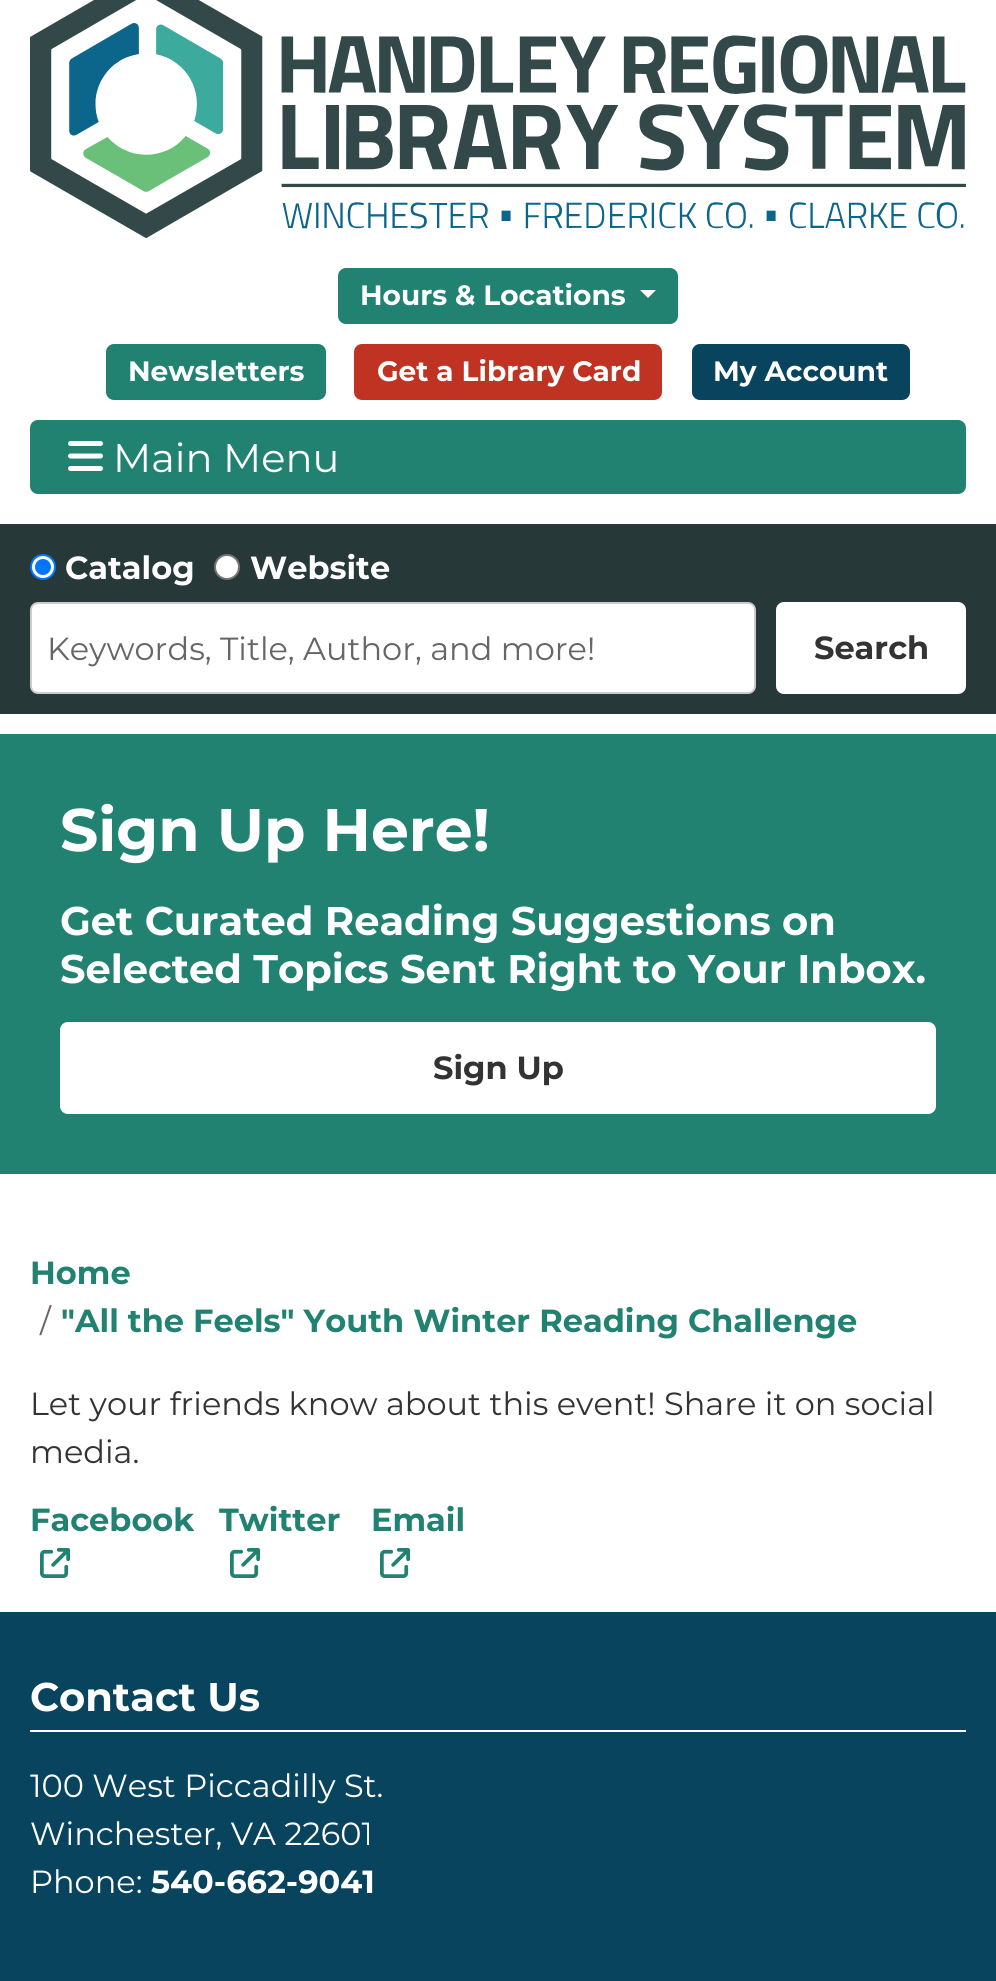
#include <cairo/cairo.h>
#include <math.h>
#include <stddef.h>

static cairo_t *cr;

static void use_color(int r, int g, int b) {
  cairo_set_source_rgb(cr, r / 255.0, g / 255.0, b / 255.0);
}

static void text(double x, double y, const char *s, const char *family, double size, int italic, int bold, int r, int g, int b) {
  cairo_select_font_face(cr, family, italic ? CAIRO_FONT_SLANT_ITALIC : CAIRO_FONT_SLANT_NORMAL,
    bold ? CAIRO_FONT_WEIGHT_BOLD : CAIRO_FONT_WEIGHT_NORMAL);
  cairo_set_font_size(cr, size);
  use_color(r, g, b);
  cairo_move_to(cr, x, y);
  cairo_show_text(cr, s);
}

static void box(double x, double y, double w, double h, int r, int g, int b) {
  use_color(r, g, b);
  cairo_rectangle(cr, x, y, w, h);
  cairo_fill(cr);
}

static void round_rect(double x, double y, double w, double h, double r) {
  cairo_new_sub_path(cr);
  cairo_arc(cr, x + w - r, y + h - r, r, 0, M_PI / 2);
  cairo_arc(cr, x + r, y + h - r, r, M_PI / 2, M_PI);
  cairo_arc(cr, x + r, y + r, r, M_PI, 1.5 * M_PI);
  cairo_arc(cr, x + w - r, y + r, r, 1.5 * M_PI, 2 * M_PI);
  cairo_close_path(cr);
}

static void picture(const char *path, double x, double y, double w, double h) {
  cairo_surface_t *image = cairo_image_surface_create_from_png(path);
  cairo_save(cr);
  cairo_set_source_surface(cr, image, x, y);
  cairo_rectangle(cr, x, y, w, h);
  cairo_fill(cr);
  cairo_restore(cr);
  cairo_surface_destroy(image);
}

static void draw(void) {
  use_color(255, 255, 255);
  cairo_paint(cr);
  picture("img_01.png", 30, 0, 936, 238);
  use_color(34, 130, 113);
  round_rect(339, 269, 338, 54, 7);
  cairo_fill_preserve(cr);
  cairo_stroke(cr);
  use_color(255, 255, 255);
  cairo_new_path(cr);
  cairo_move_to(cr, 640, 290);
  cairo_line_to(cr, 656, 290);
  cairo_line_to(cr, 648, 298);
  cairo_close_path(cr);
  cairo_fill(cr);
  use_color(34, 130, 113);
  round_rect(107, 345, 218, 54, 7);
  cairo_fill_preserve(cr);
  cairo_stroke(cr);
  use_color(192, 50, 33);
  round_rect(355, 345, 306, 54, 7);
  cairo_fill_preserve(cr);
  cairo_stroke(cr);
  use_color(8, 68, 94);
  round_rect(693, 345, 216, 54, 7);
  cairo_fill_preserve(cr);
  cairo_stroke(cr);
  use_color(34, 130, 113);
  round_rect(30, 420, 936, 74, 8);
  cairo_fill(cr);
  picture("img_02.png", 68, 441, 35, 30);
  box(0, 524, 996, 190, 39, 56, 56);
  use_color(255, 255, 255);
  cairo_arc(cr, 43, 567, 12, 0, 2 * M_PI);
  cairo_fill_preserve(cr);
  use_color(0, 117, 255);
  cairo_stroke(cr);
  cairo_arc(cr, 43, 567, 8, 0, 2 * M_PI);
  cairo_fill(cr);
  use_color(255, 255, 255);
  cairo_arc(cr, 227, 567, 12, 0, 2 * M_PI);
  cairo_fill_preserve(cr);
  use_color(118, 118, 118);
  cairo_stroke(cr);
  use_color(255, 255, 255);
  round_rect(31, 603, 724, 90, 7);
  cairo_fill_preserve(cr);
  use_color(204, 204, 204);
  cairo_stroke(cr);
  use_color(255, 255, 255);
  round_rect(777, 603, 188, 90, 7);
  cairo_fill_preserve(cr);
  cairo_stroke(cr);
  box(0, 734, 996, 440, 34, 130, 113);
  use_color(255, 255, 255);
  round_rect(61, 1023, 874, 90, 7);
  cairo_fill_preserve(cr);
  cairo_stroke(cr);
  picture("img_03.png", 40, 1548, 30, 30);
  picture("img_03.png", 230, 1548, 30, 30);
  picture("img_03.png", 380, 1548, 30, 30);
  box(0, 1612, 996, 369, 8, 68, 94);
  box(30, 1730, 936, 2, 255, 255, 255);
  text(360, 305, "Hours & Locations", "Montserrat", 28, 0, 1, 255, 255, 255);
  text(128, 381, "Newsletters", "Montserrat", 28, 0, 1, 255, 255, 255);
  text(377, 381, "Get a Library Card", "Montserrat", 28, 0, 1, 255, 255, 255);
  text(713, 381, "My Account", "Montserrat", 28, 0, 1, 255, 255, 255);
  text(113, 472, "Main Menu", "Montserrat", 40, 0, 0, 255, 255, 255);
  text(65, 579, "Catalog", "Montserrat", 32, 0, 1, 255, 255, 255);
  text(250, 579, "Website", "Montserrat", 32, 0, 1, 255, 255, 255);
  text(47, 660, "Keywords, Title, Author, and more!", "Montserrat", 32, 0, 0, 102, 102, 102);
  text(814, 659, "Search", "Montserrat", 32, 0, 1, 51, 51, 51);
  text(60, 851, "Sign Up Here!", "Montserrat", 60, 0, 1, 255, 255, 255);
  text(60, 935, "Get Curated Reading Suggestions on", "Montserrat", 40, 0, 1, 255, 255, 255);
  text(60, 983, "Selected Topics Sent Right to Your Inbox.", "Montserrat", 40, 0, 1, 255, 255, 255);
  text(433, 1079, "Sign Up", "Montserrat", 32, 0, 1, 51, 51, 51);
  text(30, 1284, "Home", "Montserrat", 32, 0, 1, 34, 130, 113);
  text(40, 1332, "/", "Montserrat", 32, 0, 0, 102, 102, 102);
  text(61, 1332, "\"All the Feels\" Youth Winter Reading Challenge", "Montserrat", 32, 0, 1, 34, 130, 113);
  text(30, 1415, "Let your friends know about this event! Share it on social", "Montserrat", 32, 0, 0, 51, 51, 51);
  text(30, 1463, "media.", "Montserrat", 32, 0, 0, 51, 51, 51);
  text(30, 1531, "Facebook", "Montserrat", 32, 0, 1, 34, 130, 113);
  text(219, 1531, "Twitter", "Montserrat", 32, 0, 1, 34, 130, 113);
  text(371, 1531, "Email", "Montserrat", 32, 0, 1, 34, 130, 113);
  text(30, 1711, "Contact Us", "Montserrat", 40, 0, 1, 255, 255, 255);
  text(30, 1797, "100 West Piccadilly St.", "Montserrat", 32, 0, 0, 255, 255, 255);
  text(30, 1845, "Winchester, VA 22601", "Montserrat", 32, 0, 0, 255, 255, 255);
  text(30, 1893, "Phone:", "Montserrat", 32, 0, 0, 255, 255, 255);
  text(151, 1893, "540-662-9041", "Montserrat", 32, 0, 1, 255, 255, 255);
}

int main(void) {
  cairo_surface_t *surface = cairo_image_surface_create(CAIRO_FORMAT_RGB24, 996, 1981);
  cr = cairo_create(surface);
  cairo_font_options_t *options = cairo_font_options_create();
  cairo_font_options_set_hint_metrics(options, CAIRO_HINT_METRICS_OFF);
  cairo_font_options_set_hint_style(options, CAIRO_HINT_STYLE_NONE);
  cairo_set_font_options(cr, options);
  cairo_set_miter_limit(cr, 4);
  draw();
  cairo_surface_write_to_png(surface, "out.png");
  cairo_font_options_destroy(options);
  cairo_destroy(cr);
  cairo_surface_destroy(surface);
  return 0;
}
